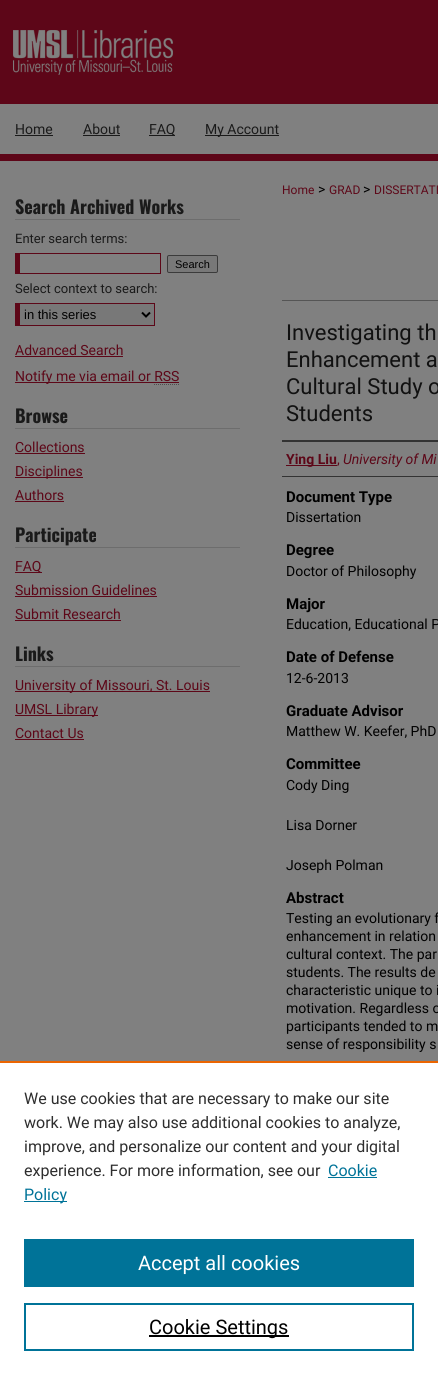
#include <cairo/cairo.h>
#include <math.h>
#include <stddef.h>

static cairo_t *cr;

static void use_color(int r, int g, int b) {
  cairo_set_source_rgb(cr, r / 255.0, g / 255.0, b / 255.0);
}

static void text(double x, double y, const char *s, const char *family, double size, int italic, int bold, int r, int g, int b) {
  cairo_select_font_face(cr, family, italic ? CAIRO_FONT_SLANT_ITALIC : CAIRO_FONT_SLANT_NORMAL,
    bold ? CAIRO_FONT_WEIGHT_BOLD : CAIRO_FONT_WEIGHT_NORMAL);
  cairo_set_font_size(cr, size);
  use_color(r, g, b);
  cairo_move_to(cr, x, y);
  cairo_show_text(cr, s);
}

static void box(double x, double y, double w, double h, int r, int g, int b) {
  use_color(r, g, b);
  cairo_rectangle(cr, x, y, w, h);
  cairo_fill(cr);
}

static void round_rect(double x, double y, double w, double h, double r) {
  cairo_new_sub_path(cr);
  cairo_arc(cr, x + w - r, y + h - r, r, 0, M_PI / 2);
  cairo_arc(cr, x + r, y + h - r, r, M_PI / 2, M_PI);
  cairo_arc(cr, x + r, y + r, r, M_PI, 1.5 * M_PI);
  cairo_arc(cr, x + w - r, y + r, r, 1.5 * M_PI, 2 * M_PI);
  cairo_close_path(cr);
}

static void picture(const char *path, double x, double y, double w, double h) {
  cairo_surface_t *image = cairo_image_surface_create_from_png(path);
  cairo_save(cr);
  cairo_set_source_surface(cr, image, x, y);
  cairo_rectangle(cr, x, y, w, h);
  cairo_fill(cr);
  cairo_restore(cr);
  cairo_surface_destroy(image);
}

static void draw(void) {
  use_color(128, 128, 128);
  cairo_paint(cr);
  picture("img_01.png", 0, 0, 438, 161);
  picture("img_02.png", 13, 30, 160, 45);
  box(15, 135, 38, 1, 26, 26, 26);
  box(83, 135, 37, 1, 26, 26, 26);
  box(149, 135, 26, 1, 26, 26, 26);
  box(205, 135, 74, 1, 26, 26, 26);
  box(15, 219, 225, 1, 109, 109, 109);
  box(15, 253, 146, 1, 93, 7, 24);
  box(160, 253, 1, 21, 93, 7, 24);
  box(15, 273, 146, 1, 93, 7, 24);
  box(15, 253, 5, 21, 93, 7, 24);
  use_color(120, 120, 120);
  round_rect(167.5, 255.5, 50, 17, 1.5);
  cairo_fill_preserve(cr);
  use_color(59, 59, 59);
  cairo_set_line_width(cr, 1);
  cairo_stroke(cr);
  box(20, 304, 134, 21, 120, 120, 120);
  box(15, 303, 140, 1, 93, 7, 24);
  box(154, 303, 1, 23, 93, 7, 24);
  box(15, 325, 140, 1, 93, 7, 24);
  box(15, 303, 5, 23, 93, 7, 24);
  cairo_new_path(cr);
  cairo_move_to(cr, 142, 312.5);
  cairo_line_to(cr, 146, 316.5);
  cairo_line_to(cr, 150, 312.5);
  use_color(0, 0, 0);
  cairo_set_line_width(cr, 2);
  cairo_stroke(cr);
  box(15, 356, 108, 1, 93, 7, 24);
  box(15, 382, 164, 1, 93, 7, 24);
  cairo_new_path(cr);
  cairo_move_to(cr, 154, 384.5);
  cairo_line_to(cr, 179, 384.5);
  use_color(77, 77, 77);
  cairo_set_line_width(cr, 1);
  cairo_set_dash(cr, (double[]){1, 1}, 2, 0);
  cairo_stroke(cr);
  box(15, 428, 225, 1, 109, 109, 109);
  box(15, 453, 70, 1, 93, 7, 24);
  box(15, 477, 68, 1, 93, 7, 24);
  box(15, 501, 49, 1, 93, 7, 24);
  box(15, 547, 225, 1, 109, 109, 109);
  box(15, 572, 27, 1, 93, 7, 24);
  box(15, 596, 142, 1, 93, 7, 24);
  box(15, 620, 106, 1, 93, 7, 24);
  box(15, 666, 225, 1, 109, 109, 109);
  box(15, 691, 195, 1, 93, 7, 24);
  box(15, 715, 83, 1, 93, 7, 24);
  box(15, 739, 69, 1, 93, 7, 24);
  box(282, 300, 156, 1, 85, 85, 85);
  box(282, 440, 156, 2, 51, 51, 51);
  box(282, 476, 156, 1, 51, 51, 51);
  box(286, 465, 51, 1, 93, 7, 24);
  box(0, 1063, 438, 312, 255, 255, 255);
  box(0, 1061, 438, 2, 235, 101, 0);
  box(328, 1177, 49, 1, 0, 115, 152);
  box(24, 1201, 43, 1, 0, 115, 152);
  box(24, 1239, 390, 48, 0, 115, 152);
  cairo_rectangle(cr, 25, 1304, 388, 46);
  cairo_set_line_width(cr, 2);
  cairo_set_dash(cr, NULL, 0, 0);
  cairo_stroke(cr);
  box(149, 1335, 140, 2, 0, 0, 0);
  text(15, 134, "Home", "Roboto", 14, 0, 0, 26, 26, 26);
  text(83, 134, "About", "Roboto", 14, 0, 0, 26, 26, 26);
  text(149, 134, "FAQ", "Roboto", 14, 0, 0, 26, 26, 26);
  text(205, 134, "My Account", "Roboto", 14, 0, 0, 26, 26, 26);
  text(15, 214, "Search Archived Works", "Oswald", 18, 0, 1, 26, 26, 26);
  text(15, 243, "Enter search terms:", "Roboto", 13, 0, 0, 26, 26, 26);
  text(175, 268, "Search", "Liberation Sans", 11, 0, 0, 0, 0, 0);
  text(15, 293, "Select context to search:", "Roboto", 13, 0, 0, 26, 26, 26);
  text(24, 319, "in this series", "Liberation Sans", 13, 0, 0, 0, 0, 0);
  text(15, 355, "Advanced Search", "Roboto", 14, 0, 0, 93, 7, 24);
  text(15, 381, "Notify me via email or RSS", "Roboto", 14, 0, 0, 93, 7, 24);
  text(15, 423, "Browse", "Oswald", 18, 0, 1, 26, 26, 26);
  text(15, 452, "Collections", "Roboto", 14, 0, 0, 93, 7, 24);
  text(15, 476, "Disciplines", "Roboto", 14, 0, 0, 93, 7, 24);
  text(15, 500, "Authors", "Roboto", 14, 0, 0, 93, 7, 24);
  text(15, 542, "Participate", "Oswald", 18, 0, 1, 26, 26, 26);
  text(15, 571, "FAQ", "Roboto", 14, 0, 0, 93, 7, 24);
  text(15, 595, "Submission Guidelines", "Roboto", 14, 0, 0, 93, 7, 24);
  text(15, 619, "Submit Research", "Roboto", 14, 0, 0, 93, 7, 24);
  text(15, 661, "Links", "Oswald", 18, 0, 1, 26, 26, 26);
  text(15, 690, "University of Missouri, St. Louis", "Roboto", 14, 0, 0, 93, 7, 24);
  text(15, 714, "UMSL Library", "Roboto", 14, 0, 0, 93, 7, 24);
  text(15, 738, "Contact Us", "Roboto", 14, 0, 0, 93, 7, 24);
  text(282, 194, "Home", "Roboto", 12, 0, 0, 93, 7, 24);
  text(318, 194, ">", "Roboto", 14, 0, 0, 0, 0, 0);
  text(329, 194, "GRAD", "Roboto", 12, 0, 0, 93, 7, 24);
  text(363, 194, ">", "Roboto", 14, 0, 0, 0, 0, 0);
  text(374, 194, "DISSERTATI", "Roboto", 12, 0, 0, 93, 7, 24);
  text(286, 340, "Investigating th", "Roboto", 22, 0, 0, 17, 17, 17);
  text(286, 367, "Enhancement a", "Roboto", 22, 0, 0, 17, 17, 17);
  text(286, 394, "Cultural Study o", "Roboto", 22, 0, 0, 17, 17, 17);
  text(286, 421, "Students", "Roboto", 22, 0, 0, 17, 17, 17);
  text(286, 464, "Ying Liu", "Roboto", 14, 0, 1, 93, 7, 24);
  text(337, 464, ",", "Roboto", 14, 0, 0, 93, 7, 24);
  text(343, 464, "University of Mi", "Roboto", 14, 1, 0, 93, 7, 24);
  text(286, 502, "Document Type", "Roboto", 15, 0, 1, 0, 0, 0);
  text(286, 522, "Dissertation", "Roboto", 14, 0, 0, 0, 0, 0);
  text(286, 555, "Degree", "Roboto", 15, 0, 1, 0, 0, 0);
  text(286, 576, "Doctor of Philosophy", "Roboto", 14, 0, 0, 0, 0, 0);
  text(286, 609, "Major", "Roboto", 15, 0, 1, 0, 0, 0);
  text(286, 629, "Education, Educational P", "Roboto", 14, 0, 0, 0, 0, 0);
  text(286, 662, "Date of Defense", "Roboto", 15, 0, 1, 0, 0, 0);
  text(286, 683, "12-6-2013", "Roboto", 14, 0, 0, 0, 0, 0);
  text(286, 716, "Graduate Advisor", "Roboto", 15, 0, 1, 0, 0, 0);
  text(286, 736, "Matthew W. Keefer, PhD", "Roboto", 14, 0, 0, 0, 0, 0);
  text(286, 769, "Committee", "Roboto", 15, 0, 1, 0, 0, 0);
  text(286, 790, "Cody Ding", "Roboto", 14, 0, 0, 0, 0, 0);
  text(286, 830, "Lisa Dorner", "Roboto", 14, 0, 0, 0, 0, 0);
  text(286, 870, "Joseph Polman", "Roboto", 14, 0, 0, 0, 0, 0);
  text(286, 903, "Abstract", "Roboto", 15, 0, 1, 0, 0, 0);
  text(286, 923, "Testing an evolutionary f", "Roboto", 14, 0, 0, 0, 0, 0);
  text(286, 941, "enhancement in relation", "Roboto", 14, 0, 0, 0, 0, 0);
  text(286, 959, "cultural context. The par", "Roboto", 14, 0, 0, 0, 0, 0);
  text(286, 977, "students. The results de", "Roboto", 14, 0, 0, 0, 0, 0);
  text(286, 995, "characteristic unique to i", "Roboto", 14, 0, 0, 0, 0, 0);
  text(286, 1013, "motivation. Regardless o", "Roboto", 14, 0, 0, 0, 0, 0);
  text(286, 1031, "participants tended to m", "Roboto", 14, 0, 0, 0, 0, 0);
  text(286, 1049, "sense of responsibility s", "Roboto", 14, 0, 0, 0, 0, 0);
  text(24, 1104, "We use cookies that are necessary to make our site", "Roboto", 16, 0, 0, 46, 46, 46);
  text(24, 1128, "work. We may also use additional cookies to analyze,", "Roboto", 16, 0, 0, 46, 46, 46);
  text(24, 1152, "improve, and personalize our content and your digital", "Roboto", 16, 0, 0, 46, 46, 46);
  text(24, 1176, "experience. For more information, see our", "Roboto", 16, 0, 0, 46, 46, 46);
  text(328, 1176, "Cookie", "Roboto", 16, 0, 0, 0, 115, 152);
  text(24, 1200, "Policy", "Roboto", 16, 0, 0, 0, 115, 152);
  text(138, 1270, "Accept all cookies", "Roboto", 20, 0, 0, 255, 255, 255);
  text(149, 1334, "Cookie Settings", "Roboto", 20, 0, 0, 0, 0, 0);
}

int main(void) {
  cairo_surface_t *surface = cairo_image_surface_create(CAIRO_FORMAT_RGB24, 438, 1375);
  cr = cairo_create(surface);
  cairo_font_options_t *options = cairo_font_options_create();
  cairo_font_options_set_hint_metrics(options, CAIRO_HINT_METRICS_OFF);
  cairo_font_options_set_hint_style(options, CAIRO_HINT_STYLE_NONE);
  cairo_set_font_options(cr, options);
  cairo_set_miter_limit(cr, 4);
  draw();
  cairo_surface_write_to_png(surface, "out.png");
  cairo_font_options_destroy(options);
  cairo_destroy(cr);
  cairo_surface_destroy(surface);
  return 0;
}
